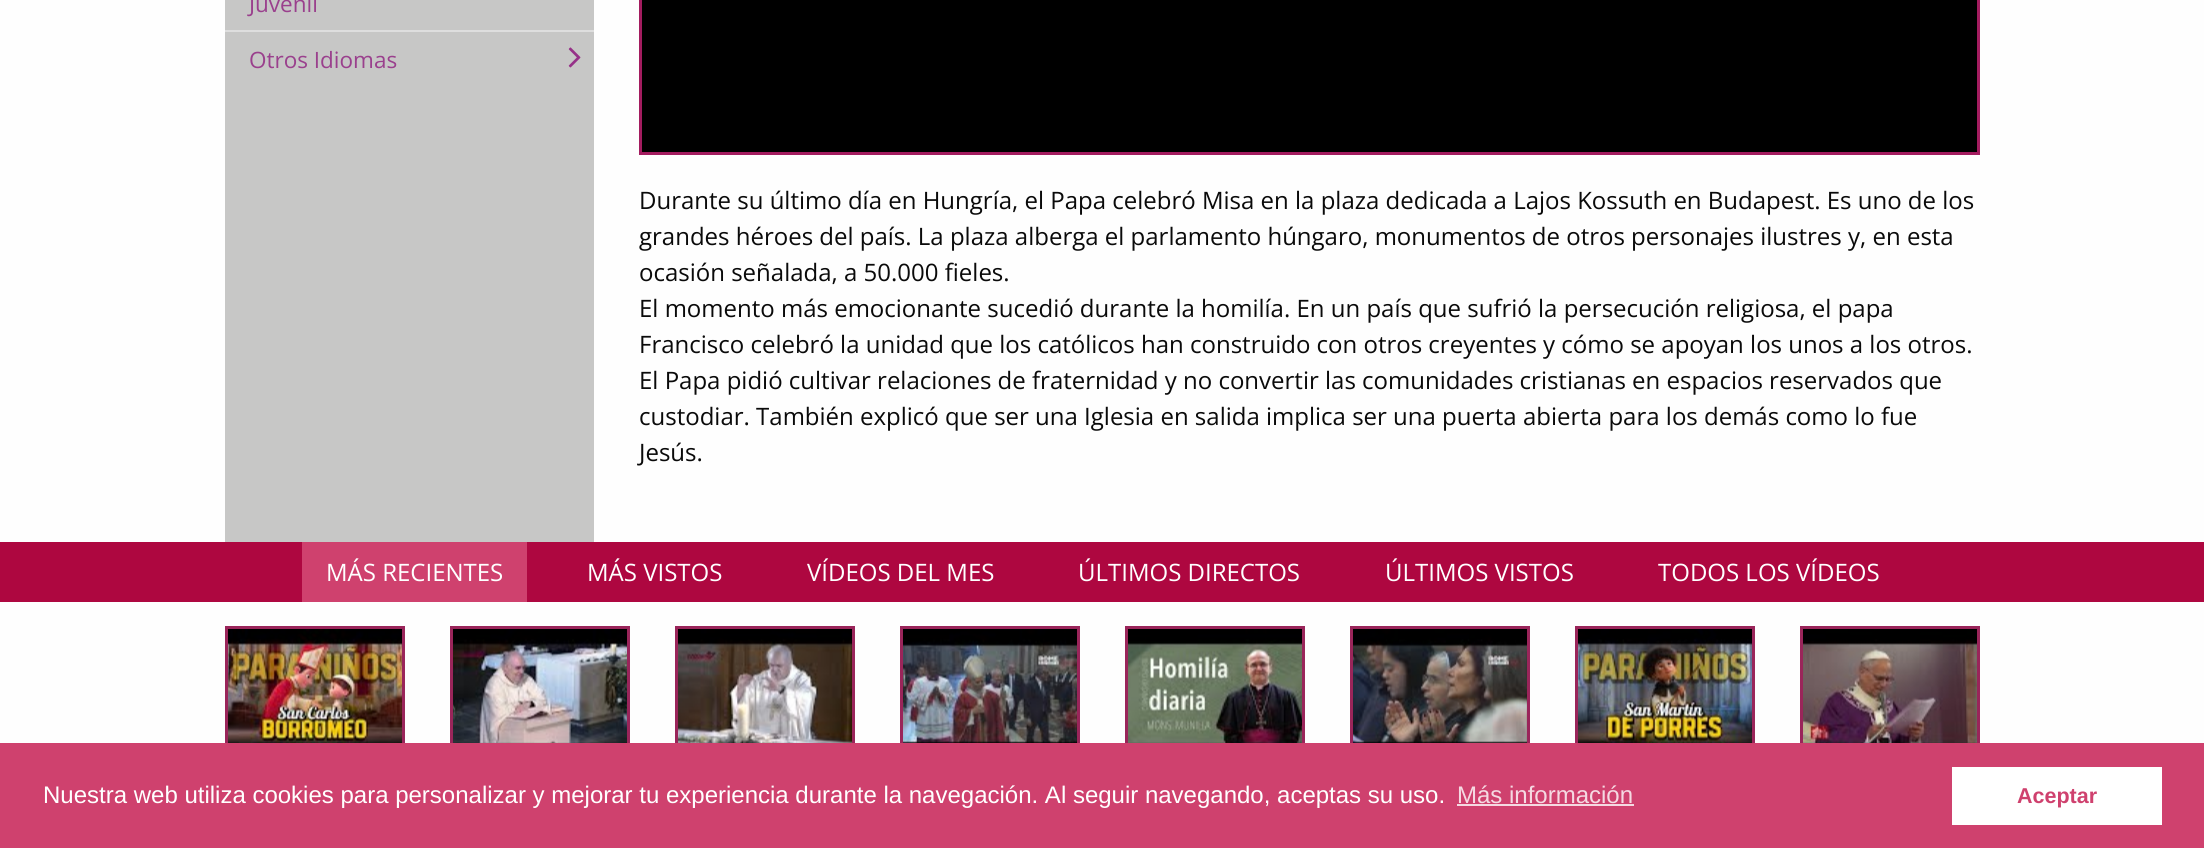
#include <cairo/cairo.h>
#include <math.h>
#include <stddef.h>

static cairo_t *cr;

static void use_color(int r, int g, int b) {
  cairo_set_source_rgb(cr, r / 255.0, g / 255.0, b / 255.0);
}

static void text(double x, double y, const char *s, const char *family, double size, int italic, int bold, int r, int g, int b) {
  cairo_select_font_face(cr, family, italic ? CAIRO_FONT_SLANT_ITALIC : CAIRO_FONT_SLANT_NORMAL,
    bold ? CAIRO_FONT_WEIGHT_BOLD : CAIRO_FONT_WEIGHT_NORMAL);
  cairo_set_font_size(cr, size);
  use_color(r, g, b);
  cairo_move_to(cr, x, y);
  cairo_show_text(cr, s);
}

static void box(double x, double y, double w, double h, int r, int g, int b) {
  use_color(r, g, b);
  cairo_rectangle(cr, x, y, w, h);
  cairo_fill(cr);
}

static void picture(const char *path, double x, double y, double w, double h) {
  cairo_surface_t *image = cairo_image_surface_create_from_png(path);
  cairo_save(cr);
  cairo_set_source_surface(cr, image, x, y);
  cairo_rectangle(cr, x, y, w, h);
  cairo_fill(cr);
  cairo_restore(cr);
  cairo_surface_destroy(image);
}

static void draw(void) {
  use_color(254, 254, 254);
  cairo_paint(cr);
  box(225, 0, 369, 542, 199, 199, 198);
  box(225, 30, 369, 2, 222, 222, 222);
  picture("img_01.png", 568, 47, 13, 21);
  use_color(0, 0, 0);
  cairo_rectangle(cr, 640.5, -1.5, 1338, 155);
  cairo_fill_preserve(cr);
  use_color(163, 28, 95);
  cairo_set_line_width(cr, 3);
  cairo_stroke(cr);
  box(0, 542, 2204, 60, 174, 7, 64);
  box(302, 542, 225, 60, 207, 65, 110);
  cairo_rectangle(cr, 226.5, 627.5, 177, 133);
  use_color(154, 37, 90);
  cairo_stroke(cr);
  picture("img_02.png", 228, 629, 174, 114);
  cairo_rectangle(cr, 451.5, 627.5, 177, 133);
  cairo_stroke(cr);
  picture("img_03.png", 453, 629, 174, 114);
  cairo_rectangle(cr, 676.5, 627.5, 177, 133);
  cairo_stroke(cr);
  picture("img_04.png", 678, 629, 174, 114);
  cairo_rectangle(cr, 901.5, 627.5, 177, 133);
  cairo_stroke(cr);
  picture("img_05.png", 903, 629, 174, 114);
  cairo_rectangle(cr, 1126.5, 627.5, 177, 133);
  cairo_stroke(cr);
  picture("img_06.png", 1128, 629, 174, 114);
  cairo_rectangle(cr, 1351.5, 627.5, 177, 133);
  cairo_stroke(cr);
  picture("img_07.png", 1353, 629, 174, 114);
  cairo_rectangle(cr, 1576.5, 627.5, 177, 133);
  cairo_stroke(cr);
  picture("img_08.png", 1578, 629, 174, 114);
  cairo_rectangle(cr, 1801.5, 627.5, 177, 133);
  cairo_stroke(cr);
  picture("img_09.png", 1803, 629, 174, 114);
  box(0, 743, 2204, 105, 207, 65, 110);
  box(1457, 804, 177, 2, 245, 217, 226);
  box(1952, 767, 210, 58, 255, 255, 255);
  text(249, 12, "Juvenil", "Open Sans", 22.5, 0, 0, 154, 64, 141);
  text(249, 68, "Otros Idiomas", "Open Sans", 22.5, 0, 0, 154, 64, 141);
  text(639, 209, "Durante su último día en Hungría, el Papa celebró Misa en la plaza dedicada a Lajos Kossuth en Budapest. Es uno de los", "Open Sans", 24, 0, 0, 10, 10, 10);
  text(639, 245, "grandes héroes del país. La plaza alberga el parlamento húngaro, monumentos de otros personajes ilustres y, en esta", "Open Sans", 24, 0, 0, 10, 10, 10);
  text(639, 281, "ocasión señalada, a 50.000 fieles.", "Open Sans", 24, 0, 0, 10, 10, 10);
  text(639, 317, "El momento más emocionante sucedió durante la homilía. En un país que sufrió la persecución religiosa, el papa", "Open Sans", 24, 0, 0, 10, 10, 10);
  text(639, 353, "Francisco celebró la unidad que los católicos han construido con otros creyentes y cómo se apoyan los unos a los otros.", "Open Sans", 24, 0, 0, 10, 10, 10);
  text(639, 389, "El Papa pidió cultivar relaciones de fraternidad y no convertir las comunidades cristianas en espacios reservados que", "Open Sans", 24, 0, 0, 10, 10, 10);
  text(639, 425, "custodiar. También explicó que ser una Iglesia en salida implica ser una puerta abierta para los demás como lo fue", "Open Sans", 24, 0, 0, 10, 10, 10);
  text(639, 461, "Jesús.", "Open Sans", 24, 0, 0, 10, 10, 10);
  text(326, 581, "MÁS RECIENTES", "Open Sans", 24, 0, 0, 255, 255, 255);
  text(587, 581, "MÁS VISTOS", "Open Sans", 24, 0, 0, 255, 255, 255);
  text(807, 581, "VÍDEOS DEL MES", "Open Sans", 24, 0, 0, 255, 255, 255);
  text(1078, 581, "ÚLTIMOS DIRECTOS", "Open Sans", 24, 0, 0, 255, 255, 255);
  text(1385, 581, "ÚLTIMOS VISTOS", "Open Sans", 24, 0, 0, 255, 255, 255);
  text(1658, 581, "TODOS LOS VÍDEOS", "Open Sans", 24, 0, 0, 255, 255, 255);
  text(43, 803, "Nuestra web utiliza cookies para personalizar y mejorar tu experiencia durante la navegación. Al seguir navegando, aceptas su uso.", "Liberation Sans", 24, 0, 0, 255, 255, 255);
  text(1457, 803, "Más información", "Liberation Sans", 24, 0, 0, 245, 217, 226);
  text(2017, 803, "Aceptar", "Liberation Sans", 21.5, 0, 1, 207, 65, 110);
}

int main(void) {
  cairo_surface_t *surface = cairo_image_surface_create(CAIRO_FORMAT_RGB24, 2204, 848);
  cr = cairo_create(surface);
  cairo_font_options_t *options = cairo_font_options_create();
  cairo_font_options_set_hint_metrics(options, CAIRO_HINT_METRICS_OFF);
  cairo_font_options_set_hint_style(options, CAIRO_HINT_STYLE_NONE);
  cairo_set_font_options(cr, options);
  cairo_set_miter_limit(cr, 4);
  draw();
  cairo_surface_write_to_png(surface, "out.png");
  cairo_font_options_destroy(options);
  cairo_destroy(cr);
  cairo_surface_destroy(surface);
  return 0;
}
